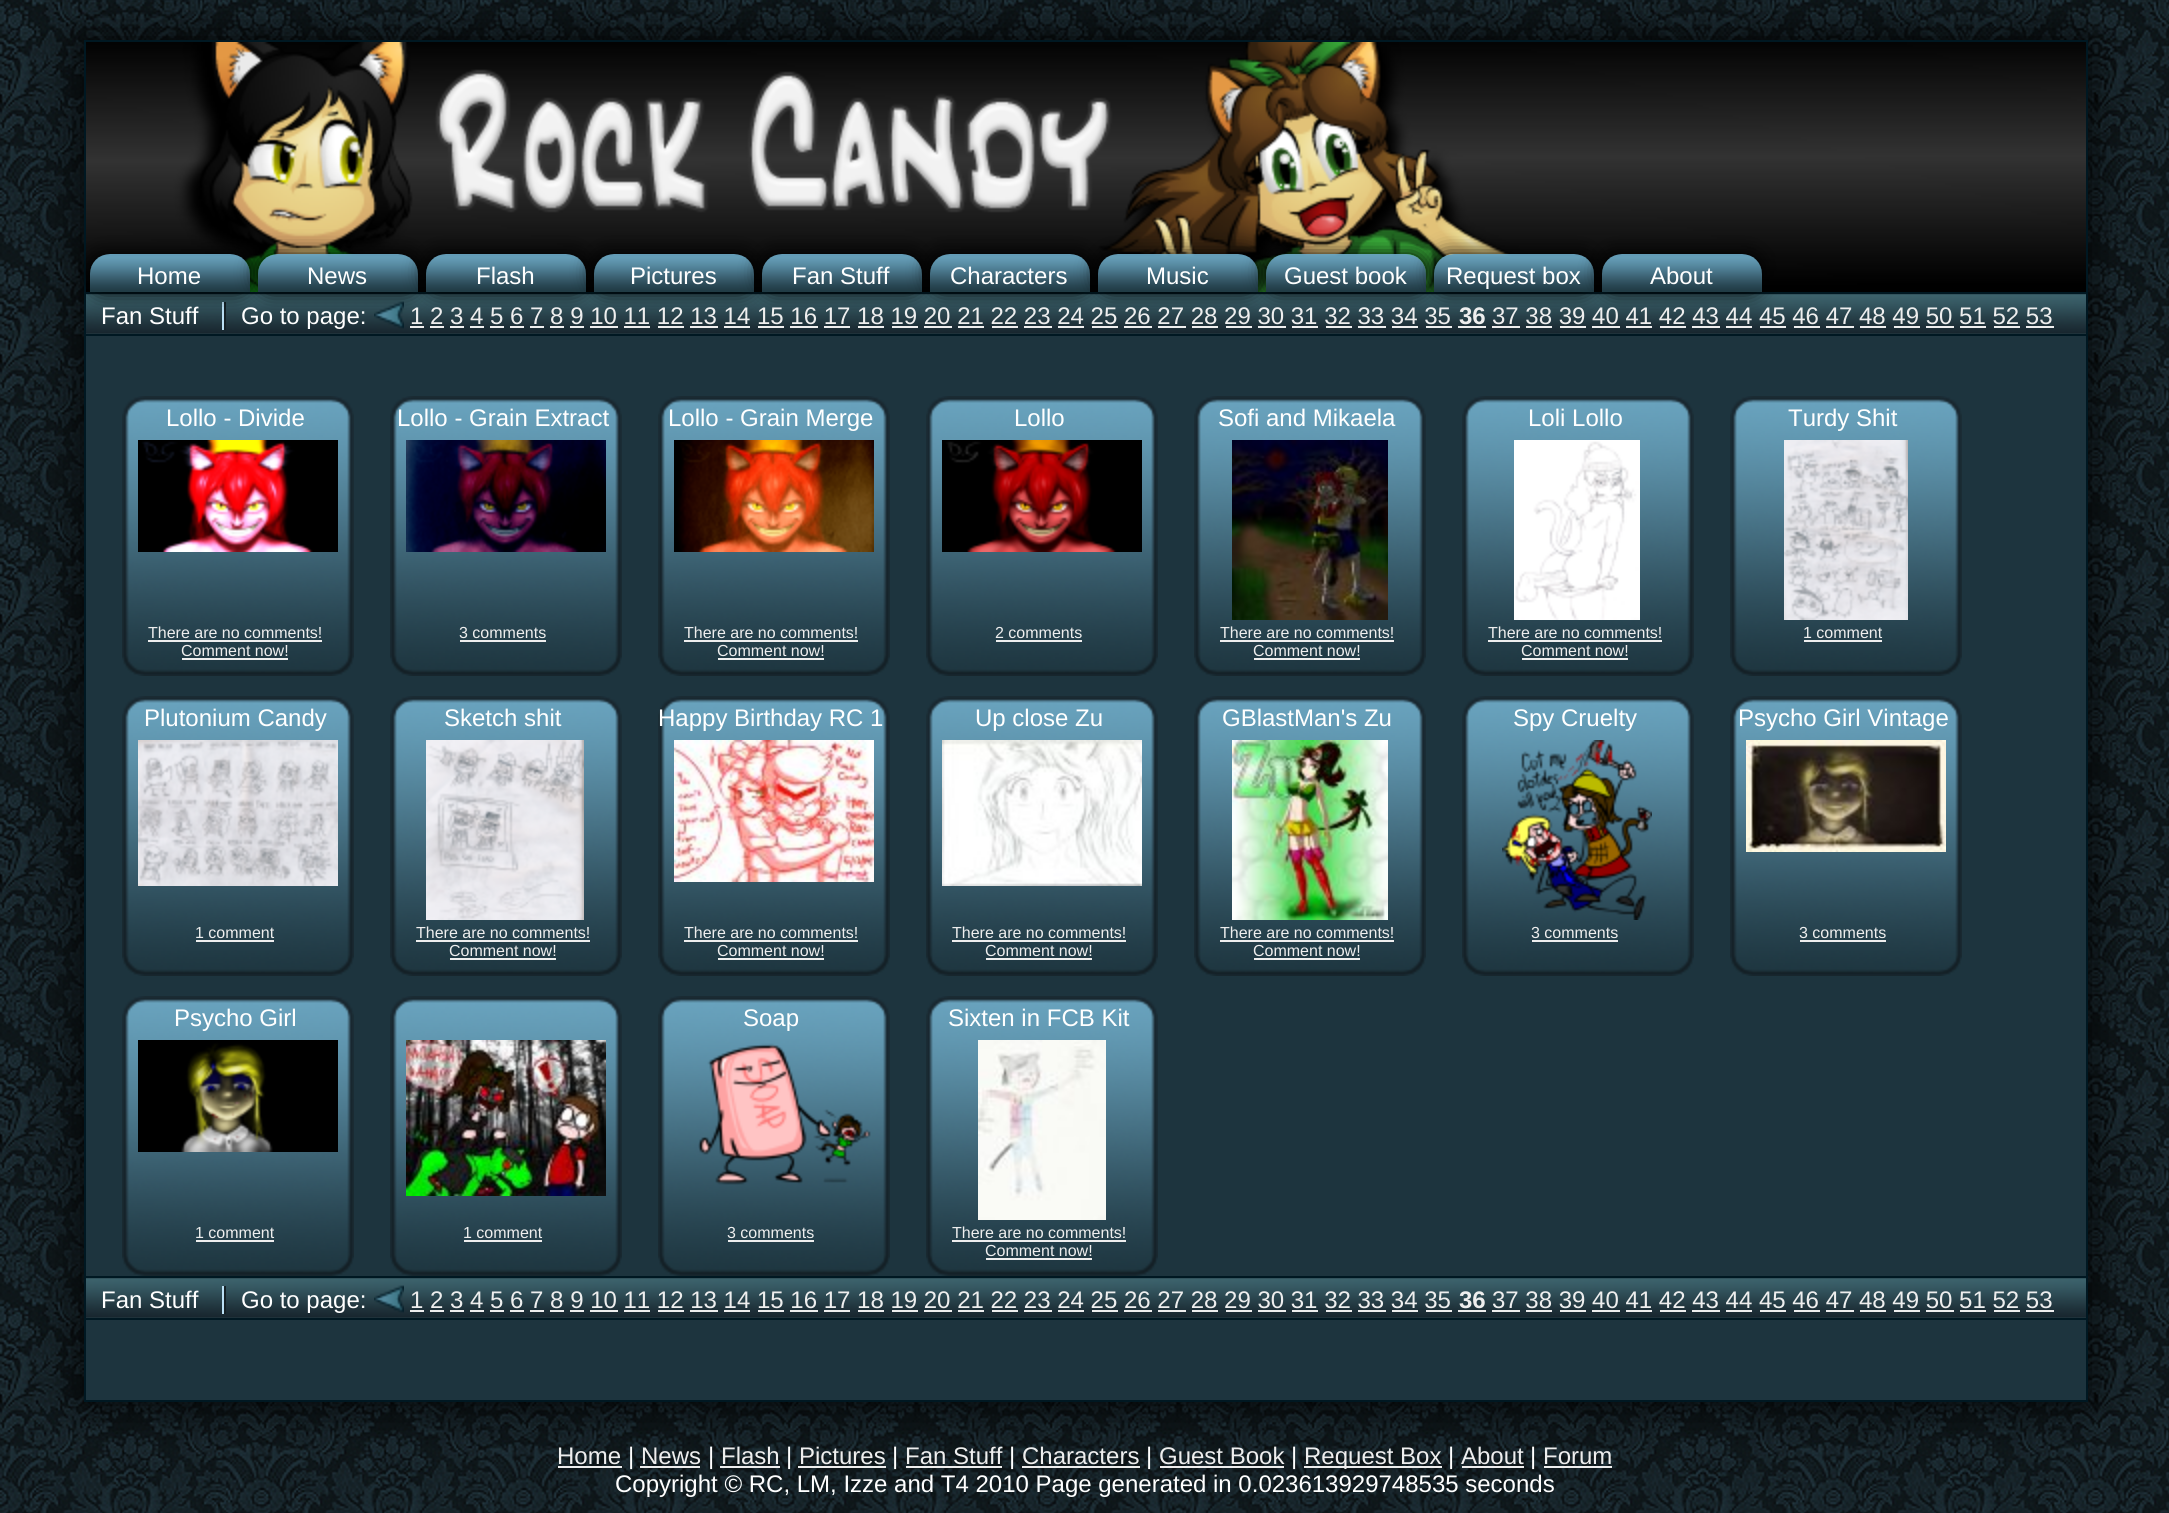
#include <cairo/cairo.h>
#include <math.h>
#include <stddef.h>

static cairo_t *cr;

static void use_color(int r, int g, int b) {
  cairo_set_source_rgb(cr, r / 255.0, g / 255.0, b / 255.0);
}

static void text(double x, double y, const char *s, const char *family, double size, int italic, int bold, int r, int g, int b) {
  cairo_select_font_face(cr, family, italic ? CAIRO_FONT_SLANT_ITALIC : CAIRO_FONT_SLANT_NORMAL,
    bold ? CAIRO_FONT_WEIGHT_BOLD : CAIRO_FONT_WEIGHT_NORMAL);
  cairo_set_font_size(cr, size);
  use_color(r, g, b);
  cairo_move_to(cr, x, y);
  cairo_show_text(cr, s);
}

static void box(double x, double y, double w, double h, int r, int g, int b) {
  use_color(r, g, b);
  cairo_rectangle(cr, x, y, w, h);
  cairo_fill(cr);
}

static void round_rect(double x, double y, double w, double h, double r) {
  cairo_new_sub_path(cr);
  cairo_arc(cr, x + w - r, y + h - r, r, 0, M_PI / 2);
  cairo_arc(cr, x + r, y + h - r, r, M_PI / 2, M_PI);
  cairo_arc(cr, x + r, y + r, r, M_PI, 1.5 * M_PI);
  cairo_arc(cr, x + w - r, y + r, r, 1.5 * M_PI, 2 * M_PI);
  cairo_close_path(cr);
}

static void shadow(double x, double y, double w, double h, double r, double blur, double alpha) {
  cairo_push_group_with_content(cr, CAIRO_CONTENT_ALPHA);
  cairo_set_operator(cr, CAIRO_OPERATOR_SOURCE);
  for (int i = 15; i >= -15 && fmin(w, h) + blur * i / 3 > 0; i -= 2) {
    double e = blur * i / 6;
    cairo_set_source_rgba(cr, 0, 0, 0, alpha * erfc((i - 1) / 8.5) / 2);
    round_rect(x - e, y - e, w + 2 * e, h + 2 * e, fmax(0, fmin(r + e + blur * .6, fmin(w, h) / 2 + e)));
    cairo_fill(cr);
  }
  cairo_pattern_t *soft = cairo_pop_group(cr);
  cairo_mask(cr, soft);
  cairo_pattern_destroy(soft);
}

static void picture(const char *path, double x, double y, double w, double h) {
  cairo_surface_t *image = cairo_image_surface_create_from_png(path);
  cairo_save(cr);
  cairo_set_source_surface(cr, image, x, y);
  cairo_rectangle(cr, x, y, w, h);
  cairo_fill(cr);
  cairo_restore(cr);
  cairo_surface_destroy(image);
}

static void draw(void) {
  use_color(255, 255, 255);
  cairo_paint(cr);
  picture("img_01.png", 0, 0, 2169, 1513);
  use_color(0, 0, 0);
  shadow(84, 40, 2004, 1362, 0, 25, 1);
  cairo_rectangle(cr, 85, 41, 2002, 1360);
  use_color(0, 24, 34);
  cairo_stroke(cr);
  picture("img_02.png", 86, 42, 2000, 250);
  picture("img_13.png", 86, 294, 2000, 40);
  box(86, 292, 2000, 2, 0, 24, 34);
  box(222, 302, 2, 28, 187, 224, 245);
  box(224, 302, 2, 28, 21, 33, 38);
  cairo_save(cr);
  cairo_set_fill_rule(cr, CAIRO_FILL_RULE_EVEN_ODD);
  cairo_new_path(cr);
  cairo_move_to(cr, 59, 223);
  cairo_line_to(cr, 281, 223);
  cairo_line_to(cr, 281, 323);
  cairo_line_to(cr, 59, 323);
  cairo_close_path(cr);
  cairo_move_to(cr, 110, 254);
  cairo_line_to(cr, 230, 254);
  cairo_curve_to(cr, 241, 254, 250, 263, 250, 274);
  cairo_line_to(cr, 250, 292);
  cairo_line_to(cr, 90, 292);
  cairo_line_to(cr, 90, 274);
  cairo_curve_to(cr, 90, 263, 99, 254, 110, 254);
  cairo_close_path(cr);
  cairo_clip(cr);
  use_color(0, 0, 0);
  shadow(90, 254, 160, 38, 20, 10, 1);
  cairo_restore(cr);
  picture("img_03.png", 90, 254, 160, 38);
  cairo_save(cr);
  cairo_set_fill_rule(cr, CAIRO_FILL_RULE_EVEN_ODD);
  cairo_new_path(cr);
  cairo_move_to(cr, 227, 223);
  cairo_line_to(cr, 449, 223);
  cairo_line_to(cr, 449, 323);
  cairo_line_to(cr, 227, 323);
  cairo_close_path(cr);
  cairo_move_to(cr, 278, 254);
  cairo_line_to(cr, 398, 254);
  cairo_curve_to(cr, 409, 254, 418, 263, 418, 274);
  cairo_line_to(cr, 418, 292);
  cairo_line_to(cr, 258, 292);
  cairo_line_to(cr, 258, 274);
  cairo_curve_to(cr, 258, 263, 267, 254, 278, 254);
  cairo_close_path(cr);
  cairo_clip(cr);
  use_color(0, 0, 0);
  shadow(258, 254, 160, 38, 20, 10, 1);
  cairo_restore(cr);
  picture("img_04.png", 258, 254, 160, 38);
  cairo_save(cr);
  cairo_set_fill_rule(cr, CAIRO_FILL_RULE_EVEN_ODD);
  cairo_new_path(cr);
  cairo_move_to(cr, 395, 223);
  cairo_line_to(cr, 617, 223);
  cairo_line_to(cr, 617, 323);
  cairo_line_to(cr, 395, 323);
  cairo_close_path(cr);
  cairo_move_to(cr, 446, 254);
  cairo_line_to(cr, 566, 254);
  cairo_curve_to(cr, 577, 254, 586, 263, 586, 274);
  cairo_line_to(cr, 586, 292);
  cairo_line_to(cr, 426, 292);
  cairo_line_to(cr, 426, 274);
  cairo_curve_to(cr, 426, 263, 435, 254, 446, 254);
  cairo_close_path(cr);
  cairo_clip(cr);
  use_color(0, 0, 0);
  shadow(426, 254, 160, 38, 20, 10, 1);
  cairo_restore(cr);
  picture("img_05.png", 426, 254, 160, 38);
  cairo_save(cr);
  cairo_set_fill_rule(cr, CAIRO_FILL_RULE_EVEN_ODD);
  cairo_new_path(cr);
  cairo_move_to(cr, 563, 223);
  cairo_line_to(cr, 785, 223);
  cairo_line_to(cr, 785, 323);
  cairo_line_to(cr, 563, 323);
  cairo_close_path(cr);
  cairo_move_to(cr, 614, 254);
  cairo_line_to(cr, 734, 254);
  cairo_curve_to(cr, 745, 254, 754, 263, 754, 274);
  cairo_line_to(cr, 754, 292);
  cairo_line_to(cr, 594, 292);
  cairo_line_to(cr, 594, 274);
  cairo_curve_to(cr, 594, 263, 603, 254, 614, 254);
  cairo_close_path(cr);
  cairo_clip(cr);
  use_color(0, 0, 0);
  shadow(594, 254, 160, 38, 20, 10, 1);
  cairo_restore(cr);
  picture("img_06.png", 594, 254, 160, 38);
  cairo_save(cr);
  cairo_set_fill_rule(cr, CAIRO_FILL_RULE_EVEN_ODD);
  cairo_new_path(cr);
  cairo_move_to(cr, 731, 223);
  cairo_line_to(cr, 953, 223);
  cairo_line_to(cr, 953, 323);
  cairo_line_to(cr, 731, 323);
  cairo_close_path(cr);
  cairo_move_to(cr, 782, 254);
  cairo_line_to(cr, 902, 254);
  cairo_curve_to(cr, 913, 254, 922, 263, 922, 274);
  cairo_line_to(cr, 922, 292);
  cairo_line_to(cr, 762, 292);
  cairo_line_to(cr, 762, 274);
  cairo_curve_to(cr, 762, 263, 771, 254, 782, 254);
  cairo_close_path(cr);
  cairo_clip(cr);
  use_color(0, 0, 0);
  shadow(762, 254, 160, 38, 20, 10, 1);
  cairo_restore(cr);
  picture("img_07.png", 762, 254, 160, 38);
  cairo_save(cr);
  cairo_set_fill_rule(cr, CAIRO_FILL_RULE_EVEN_ODD);
  cairo_new_path(cr);
  cairo_move_to(cr, 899, 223);
  cairo_line_to(cr, 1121, 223);
  cairo_line_to(cr, 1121, 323);
  cairo_line_to(cr, 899, 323);
  cairo_close_path(cr);
  cairo_move_to(cr, 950, 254);
  cairo_line_to(cr, 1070, 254);
  cairo_curve_to(cr, 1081, 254, 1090, 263, 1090, 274);
  cairo_line_to(cr, 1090, 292);
  cairo_line_to(cr, 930, 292);
  cairo_line_to(cr, 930, 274);
  cairo_curve_to(cr, 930, 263, 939, 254, 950, 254);
  cairo_close_path(cr);
  cairo_clip(cr);
  use_color(0, 0, 0);
  shadow(930, 254, 160, 38, 20, 10, 1);
  cairo_restore(cr);
  picture("img_08.png", 930, 254, 160, 38);
  cairo_save(cr);
  cairo_set_fill_rule(cr, CAIRO_FILL_RULE_EVEN_ODD);
  cairo_new_path(cr);
  cairo_move_to(cr, 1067, 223);
  cairo_line_to(cr, 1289, 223);
  cairo_line_to(cr, 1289, 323);
  cairo_line_to(cr, 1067, 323);
  cairo_close_path(cr);
  cairo_move_to(cr, 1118, 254);
  cairo_line_to(cr, 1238, 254);
  cairo_curve_to(cr, 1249, 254, 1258, 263, 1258, 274);
  cairo_line_to(cr, 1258, 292);
  cairo_line_to(cr, 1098, 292);
  cairo_line_to(cr, 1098, 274);
  cairo_curve_to(cr, 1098, 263, 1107, 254, 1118, 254);
  cairo_close_path(cr);
  cairo_clip(cr);
  use_color(0, 0, 0);
  shadow(1098, 254, 160, 38, 20, 10, 1);
  cairo_restore(cr);
  picture("img_09.png", 1098, 254, 160, 38);
  cairo_save(cr);
  cairo_set_fill_rule(cr, CAIRO_FILL_RULE_EVEN_ODD);
  cairo_new_path(cr);
  cairo_move_to(cr, 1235, 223);
  cairo_line_to(cr, 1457, 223);
  cairo_line_to(cr, 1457, 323);
  cairo_line_to(cr, 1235, 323);
  cairo_close_path(cr);
  cairo_move_to(cr, 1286, 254);
  cairo_line_to(cr, 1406, 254);
  cairo_curve_to(cr, 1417, 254, 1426, 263, 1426, 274);
  cairo_line_to(cr, 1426, 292);
  cairo_line_to(cr, 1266, 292);
  cairo_line_to(cr, 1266, 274);
  cairo_curve_to(cr, 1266, 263, 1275, 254, 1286, 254);
  cairo_close_path(cr);
  cairo_clip(cr);
  use_color(0, 0, 0);
  shadow(1266, 254, 160, 38, 20, 10, 1);
  cairo_restore(cr);
  picture("img_10.png", 1266, 254, 160, 38);
  cairo_save(cr);
  cairo_set_fill_rule(cr, CAIRO_FILL_RULE_EVEN_ODD);
  cairo_new_path(cr);
  cairo_move_to(cr, 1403, 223);
  cairo_line_to(cr, 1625, 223);
  cairo_line_to(cr, 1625, 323);
  cairo_line_to(cr, 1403, 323);
  cairo_close_path(cr);
  cairo_move_to(cr, 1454, 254);
  cairo_line_to(cr, 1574, 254);
  cairo_curve_to(cr, 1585, 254, 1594, 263, 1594, 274);
  cairo_line_to(cr, 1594, 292);
  cairo_line_to(cr, 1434, 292);
  cairo_line_to(cr, 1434, 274);
  cairo_curve_to(cr, 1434, 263, 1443, 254, 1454, 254);
  cairo_close_path(cr);
  cairo_clip(cr);
  use_color(0, 0, 0);
  shadow(1434, 254, 160, 38, 20, 10, 1);
  cairo_restore(cr);
  picture("img_11.png", 1434, 254, 160, 38);
  cairo_save(cr);
  cairo_set_fill_rule(cr, CAIRO_FILL_RULE_EVEN_ODD);
  cairo_new_path(cr);
  cairo_move_to(cr, 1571, 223);
  cairo_line_to(cr, 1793, 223);
  cairo_line_to(cr, 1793, 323);
  cairo_line_to(cr, 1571, 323);
  cairo_close_path(cr);
  cairo_move_to(cr, 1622, 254);
  cairo_line_to(cr, 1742, 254);
  cairo_curve_to(cr, 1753, 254, 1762, 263, 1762, 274);
  cairo_line_to(cr, 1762, 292);
  cairo_line_to(cr, 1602, 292);
  cairo_line_to(cr, 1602, 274);
  cairo_curve_to(cr, 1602, 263, 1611, 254, 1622, 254);
  cairo_close_path(cr);
  cairo_clip(cr);
  use_color(0, 0, 0);
  shadow(1602, 254, 160, 38, 20, 10, 1);
  cairo_restore(cr);
  picture("img_12.png", 1602, 254, 160, 38);
  box(86, 336, 2000, 1064, 29, 52, 62);
  box(86, 334, 2000, 2, 0, 24, 34);
  picture("img_14.png", 374, 301, 30, 28);
  box(410, 326, 14, 2, 238, 238, 238);
  box(1458, 326, 28, 2, 238, 238, 238);
  box(1492, 326, 28, 2, 238, 238, 238);
  box(430, 326, 14, 2, 238, 238, 238);
  box(450, 326, 14, 2, 238, 238, 238);
  box(470, 326, 14, 2, 238, 238, 238);
  box(490, 326, 14, 2, 238, 238, 238);
  box(510, 326, 14, 2, 238, 238, 238);
  box(530, 326, 14, 2, 238, 238, 238);
  box(550, 326, 14, 2, 238, 238, 238);
  box(570, 326, 14, 2, 238, 238, 238);
  box(590, 326, 28, 2, 238, 238, 238);
  box(624, 326, 26, 2, 238, 238, 238);
  box(658, 326, 26, 2, 238, 238, 238);
  box(690, 326, 28, 2, 238, 238, 238);
  box(724, 326, 26, 2, 238, 238, 238);
  box(758, 326, 26, 2, 238, 238, 238);
  box(790, 326, 28, 2, 238, 238, 238);
  box(824, 326, 26, 2, 238, 238, 238);
  box(858, 326, 26, 2, 238, 238, 238);
  box(892, 326, 26, 2, 238, 238, 238);
  box(924, 326, 28, 2, 238, 238, 238);
  box(958, 326, 26, 2, 238, 238, 238);
  box(992, 326, 26, 2, 238, 238, 238);
  box(1024, 326, 28, 2, 238, 238, 238);
  box(1058, 326, 26, 2, 238, 238, 238);
  box(1092, 326, 26, 2, 238, 238, 238);
  box(1124, 326, 28, 2, 238, 238, 238);
  box(1158, 326, 28, 2, 238, 238, 238);
  box(1192, 326, 26, 2, 238, 238, 238);
  box(1226, 326, 26, 2, 238, 238, 238);
  box(1258, 326, 28, 2, 238, 238, 238);
  box(1292, 326, 26, 2, 238, 238, 238);
  box(1326, 326, 26, 2, 238, 238, 238);
  box(1358, 326, 28, 2, 238, 238, 238);
  box(1392, 326, 26, 2, 238, 238, 238);
  box(1426, 326, 26, 2, 238, 238, 238);
  box(1526, 326, 26, 2, 238, 238, 238);
  box(1560, 326, 26, 2, 238, 238, 238);
  box(1592, 326, 28, 2, 238, 238, 238);
  box(1626, 326, 26, 2, 238, 238, 238);
  box(1660, 326, 26, 2, 238, 238, 238);
  box(1692, 326, 28, 2, 238, 238, 238);
  box(1726, 326, 26, 2, 238, 238, 238);
  box(1760, 326, 26, 2, 238, 238, 238);
  box(1794, 326, 26, 2, 238, 238, 238);
  box(1826, 326, 28, 2, 238, 238, 238);
  box(1860, 326, 26, 2, 238, 238, 238);
  box(1894, 326, 26, 2, 238, 238, 238);
  box(1926, 326, 28, 2, 238, 238, 238);
  box(1960, 326, 26, 2, 238, 238, 238);
  box(1994, 326, 26, 2, 238, 238, 238);
  box(2026, 326, 28, 2, 238, 238, 238);
  picture("img_15.png", 122, 396, 232, 280);
  picture("img_16.png", 138, 440, 200, 112);
  box(148, 640, 174, 2, 238, 238, 238);
  box(182, 658, 106, 2, 238, 238, 238);
  picture("img_15.png", 390, 396, 232, 280);
  picture("img_17.png", 406, 440, 200, 112);
  box(460, 640, 86, 2, 238, 238, 238);
  picture("img_15.png", 658, 396, 232, 280);
  picture("img_18.png", 674, 440, 200, 112);
  box(684, 640, 174, 2, 238, 238, 238);
  box(718, 658, 106, 2, 238, 238, 238);
  picture("img_15.png", 926, 396, 232, 280);
  picture("img_19.png", 942, 440, 200, 112);
  box(996, 640, 86, 2, 238, 238, 238);
  picture("img_15.png", 1194, 396, 232, 280);
  picture("img_20.png", 1232, 440, 156, 180);
  box(1220, 640, 174, 2, 238, 238, 238);
  box(1254, 658, 106, 2, 238, 238, 238);
  picture("img_15.png", 1462, 396, 232, 280);
  picture("img_21.png", 1514, 440, 126, 180);
  box(1488, 640, 174, 2, 238, 238, 238);
  box(1522, 658, 106, 2, 238, 238, 238);
  picture("img_15.png", 1730, 396, 232, 280);
  picture("img_22.png", 1784, 440, 124, 180);
  box(1804, 640, 78, 2, 238, 238, 238);
  picture("img_15.png", 122, 696, 232, 280);
  picture("img_23.png", 138, 740, 200, 146);
  box(196, 940, 78, 2, 238, 238, 238);
  picture("img_15.png", 390, 696, 232, 280);
  picture("img_24.png", 426, 740, 158, 180);
  box(416, 940, 174, 2, 238, 238, 238);
  box(450, 958, 106, 2, 238, 238, 238);
  picture("img_15.png", 658, 696, 232, 280);
  picture("img_25.png", 674, 740, 200, 142);
  box(684, 940, 174, 2, 238, 238, 238);
  box(718, 958, 106, 2, 238, 238, 238);
  picture("img_15.png", 926, 696, 232, 280);
  picture("img_26.png", 942, 740, 200, 146);
  box(952, 940, 174, 2, 238, 238, 238);
  box(986, 958, 106, 2, 238, 238, 238);
  picture("img_15.png", 1194, 696, 232, 280);
  picture("img_27.png", 1232, 740, 156, 180);
  box(1220, 940, 174, 2, 238, 238, 238);
  box(1254, 958, 106, 2, 238, 238, 238);
  picture("img_15.png", 1462, 696, 232, 280);
  picture("img_28.png", 1502, 740, 150, 180);
  box(1532, 940, 86, 2, 238, 238, 238);
  picture("img_15.png", 1730, 696, 232, 280);
  picture("img_29.png", 1746, 740, 200, 112);
  box(1800, 940, 86, 2, 238, 238, 238);
  picture("img_15.png", 122, 996, 232, 280);
  picture("img_30.png", 138, 1040, 200, 112);
  box(196, 1240, 78, 2, 238, 238, 238);
  picture("img_15.png", 390, 996, 232, 280);
  picture("img_31.png", 406, 1040, 200, 156);
  box(464, 1240, 78, 2, 238, 238, 238);
  picture("img_15.png", 658, 996, 232, 280);
  picture("img_32.png", 698, 1043, 173, 142);
  box(728, 1240, 86, 2, 238, 238, 238);
  picture("img_15.png", 926, 996, 232, 280);
  picture("img_33.png", 978, 1040, 128, 180);
  box(952, 1240, 174, 2, 238, 238, 238);
  box(986, 1258, 106, 2, 238, 238, 238);
  picture("img_13.png", 86, 1278, 2000, 40);
  box(86, 1276, 2000, 2, 0, 24, 34);
  box(86, 1318, 2000, 2, 0, 24, 34);
  box(222, 1286, 2, 28, 187, 224, 245);
  box(224, 1286, 2, 28, 21, 33, 38);
  picture("img_34.png", 374, 1285, 30, 28);
  box(410, 1310, 14, 2, 238, 238, 238);
  box(1458, 1310, 28, 2, 238, 238, 238);
  box(1492, 1310, 28, 2, 238, 238, 238);
  box(430, 1310, 14, 2, 238, 238, 238);
  box(450, 1310, 14, 2, 238, 238, 238);
  box(470, 1310, 14, 2, 238, 238, 238);
  box(490, 1310, 14, 2, 238, 238, 238);
  box(510, 1310, 14, 2, 238, 238, 238);
  box(530, 1310, 14, 2, 238, 238, 238);
  box(550, 1310, 14, 2, 238, 238, 238);
  box(570, 1310, 14, 2, 238, 238, 238);
  box(590, 1310, 28, 2, 238, 238, 238);
  box(624, 1310, 26, 2, 238, 238, 238);
  box(658, 1310, 26, 2, 238, 238, 238);
  box(690, 1310, 28, 2, 238, 238, 238);
  box(724, 1310, 26, 2, 238, 238, 238);
  box(758, 1310, 26, 2, 238, 238, 238);
  box(790, 1310, 28, 2, 238, 238, 238);
  box(824, 1310, 26, 2, 238, 238, 238);
  box(858, 1310, 26, 2, 238, 238, 238);
  box(892, 1310, 26, 2, 238, 238, 238);
  box(924, 1310, 28, 2, 238, 238, 238);
  box(958, 1310, 26, 2, 238, 238, 238);
  box(992, 1310, 26, 2, 238, 238, 238);
  box(1024, 1310, 28, 2, 238, 238, 238);
  box(1058, 1310, 26, 2, 238, 238, 238);
  box(1092, 1310, 26, 2, 238, 238, 238);
  box(1124, 1310, 28, 2, 238, 238, 238);
  box(1158, 1310, 28, 2, 238, 238, 238);
  box(1192, 1310, 26, 2, 238, 238, 238);
  box(1226, 1310, 26, 2, 238, 238, 238);
  box(1258, 1310, 28, 2, 238, 238, 238);
  box(1292, 1310, 26, 2, 238, 238, 238);
  box(1326, 1310, 26, 2, 238, 238, 238);
  box(1358, 1310, 28, 2, 238, 238, 238);
  box(1392, 1310, 26, 2, 238, 238, 238);
  box(1426, 1310, 26, 2, 238, 238, 238);
  box(1526, 1310, 26, 2, 238, 238, 238);
  box(1560, 1310, 26, 2, 238, 238, 238);
  box(1592, 1310, 28, 2, 238, 238, 238);
  box(1626, 1310, 26, 2, 238, 238, 238);
  box(1660, 1310, 26, 2, 238, 238, 238);
  box(1692, 1310, 28, 2, 238, 238, 238);
  box(1726, 1310, 26, 2, 238, 238, 238);
  box(1760, 1310, 26, 2, 238, 238, 238);
  box(1794, 1310, 26, 2, 238, 238, 238);
  box(1826, 1310, 28, 2, 238, 238, 238);
  box(1860, 1310, 26, 2, 238, 238, 238);
  box(1894, 1310, 26, 2, 238, 238, 238);
  box(1926, 1310, 28, 2, 238, 238, 238);
  box(1960, 1310, 26, 2, 238, 238, 238);
  box(1994, 1310, 26, 2, 238, 238, 238);
  box(2026, 1310, 28, 2, 238, 238, 238);
  box(558, 1466, 64, 2, 238, 238, 238);
  box(640, 1466, 60, 2, 238, 238, 238);
  box(720, 1466, 60, 2, 238, 238, 238);
  box(798, 1466, 88, 2, 238, 238, 238);
  box(906, 1466, 96, 2, 238, 238, 238);
  box(1022, 1466, 118, 2, 238, 238, 238);
  box(1160, 1466, 124, 2, 238, 238, 238);
  box(1304, 1466, 138, 2, 238, 238, 238);
  box(1462, 1466, 62, 2, 238, 238, 238);
  box(1544, 1466, 68, 2, 238, 238, 238);
  text(137, 284, "Home", "Liberation Sans", 24, 0, 0, 255, 255, 255);
  text(307, 284, "News", "Liberation Sans", 24, 0, 0, 255, 255, 255);
  text(476, 284, "Flash", "Liberation Sans", 24, 0, 0, 255, 255, 255);
  text(630, 284, "Pictures", "Liberation Sans", 24, 0, 0, 255, 255, 255);
  text(792, 284, "Fan Stuff", "Liberation Sans", 24, 0, 0, 255, 255, 255);
  text(950, 284, "Characters", "Liberation Sans", 24, 0, 0, 255, 255, 255);
  text(1146, 284, "Music", "Liberation Sans", 24, 0, 0, 255, 255, 255);
  text(1284, 284, "Guest book", "Liberation Sans", 24, 0, 0, 255, 255, 255);
  text(1446, 284, "Request box", "Liberation Sans", 24, 0, 0, 255, 255, 255);
  text(1650, 284, "About", "Liberation Sans", 24, 0, 0, 255, 255, 255);
  text(101, 324, "Fan Stuff", "Liberation Sans", 24, 0, 0, 255, 255, 255);
  text(241, 324, "Go to page:", "Liberation Sans", 24, 0, 0, 255, 255, 255);
  text(410, 324, "1 2 3 4 5 6 7 8 9 10 11 12 13 14 15 16 17 18 19 20 21 22 23 24 25 26 27 28 29 30 31 32 33 34 35", "Liberation Sans", 24, 0, 0, 238, 238, 238);
  text(1459, 324, "36", "Liberation Sans", 24, 0, 1, 238, 238, 238);
  text(1492, 324, "37 38 39 40 41 42 43 44 45 46 47 48 49 50 51 52 53", "Liberation Sans", 24, 0, 0, 238, 238, 238);
  text(166, 426, "Lollo - Divide", "Liberation Sans", 24, 0, 0, 255, 255, 255);
  text(148, 638, "There are no comments!", "Liberation Sans", 16, 0, 0, 238, 238, 238);
  text(181, 656, "Comment now!", "Liberation Sans", 16, 0, 0, 238, 238, 238);
  text(397, 426, "Lollo - Grain Extract", "Liberation Sans", 24, 0, 0, 255, 255, 255);
  text(459, 638, "3 comments", "Liberation Sans", 16, 0, 0, 238, 238, 238);
  text(668, 426, "Lollo - Grain Merge", "Liberation Sans", 24, 0, 0, 255, 255, 255);
  text(684, 638, "There are no comments!", "Liberation Sans", 16, 0, 0, 238, 238, 238);
  text(717, 656, "Comment now!", "Liberation Sans", 16, 0, 0, 238, 238, 238);
  text(1014, 426, "Lollo", "Liberation Sans", 24, 0, 0, 255, 255, 255);
  text(995, 638, "2 comments", "Liberation Sans", 16, 0, 0, 238, 238, 238);
  text(1218, 426, "Sofi and Mikaela", "Liberation Sans", 24, 0, 0, 255, 255, 255);
  text(1220, 638, "There are no comments!", "Liberation Sans", 16, 0, 0, 238, 238, 238);
  text(1253, 656, "Comment now!", "Liberation Sans", 16, 0, 0, 238, 238, 238);
  text(1528, 426, "Loli Lollo", "Liberation Sans", 24, 0, 0, 255, 255, 255);
  text(1488, 638, "There are no comments!", "Liberation Sans", 16, 0, 0, 238, 238, 238);
  text(1521, 656, "Comment now!", "Liberation Sans", 16, 0, 0, 238, 238, 238);
  text(1788, 426, "Turdy Shit", "Liberation Sans", 24, 0, 0, 255, 255, 255);
  text(1803, 638, "1 comment", "Liberation Sans", 16, 0, 0, 238, 238, 238);
  text(144, 726, "Plutonium Candy", "Liberation Sans", 24, 0, 0, 255, 255, 255);
  text(195, 938, "1 comment", "Liberation Sans", 16, 0, 0, 238, 238, 238);
  text(444, 726, "Sketch shit", "Liberation Sans", 24, 0, 0, 255, 255, 255);
  text(416, 938, "There are no comments!", "Liberation Sans", 16, 0, 0, 238, 238, 238);
  text(449, 956, "Comment now!", "Liberation Sans", 16, 0, 0, 238, 238, 238);
  text(658, 726, "Happy Birthday RC 1", "Liberation Sans", 24, 0, 0, 255, 255, 255);
  text(684, 938, "There are no comments!", "Liberation Sans", 16, 0, 0, 238, 238, 238);
  text(717, 956, "Comment now!", "Liberation Sans", 16, 0, 0, 238, 238, 238);
  text(975, 726, "Up close Zu", "Liberation Sans", 24, 0, 0, 255, 255, 255);
  text(952, 938, "There are no comments!", "Liberation Sans", 16, 0, 0, 238, 238, 238);
  text(985, 956, "Comment now!", "Liberation Sans", 16, 0, 0, 238, 238, 238);
  text(1222, 726, "GBlastMan's Zu", "Liberation Sans", 24, 0, 0, 255, 255, 255);
  text(1220, 938, "There are no comments!", "Liberation Sans", 16, 0, 0, 238, 238, 238);
  text(1253, 956, "Comment now!", "Liberation Sans", 16, 0, 0, 238, 238, 238);
  text(1513, 726, "Spy Cruelty", "Liberation Sans", 24, 0, 0, 255, 255, 255);
  text(1531, 938, "3 comments", "Liberation Sans", 16, 0, 0, 238, 238, 238);
  text(1738, 726, "Psycho Girl Vintage", "Liberation Sans", 24, 0, 0, 255, 255, 255);
  text(1799, 938, "3 comments", "Liberation Sans", 16, 0, 0, 238, 238, 238);
  text(174, 1026, "Psycho Girl", "Liberation Sans", 24, 0, 0, 255, 255, 255);
  text(195, 1238, "1 comment", "Liberation Sans", 16, 0, 0, 238, 238, 238);
  text(463, 1238, "1 comment", "Liberation Sans", 16, 0, 0, 238, 238, 238);
  text(743, 1026, "Soap", "Liberation Sans", 24, 0, 0, 255, 255, 255);
  text(727, 1238, "3 comments", "Liberation Sans", 16, 0, 0, 238, 238, 238);
  text(948, 1026, "Sixten in FCB Kit", "Liberation Sans", 24, 0, 0, 255, 255, 255);
  text(952, 1238, "There are no comments!", "Liberation Sans", 16, 0, 0, 238, 238, 238);
  text(985, 1256, "Comment now!", "Liberation Sans", 16, 0, 0, 238, 238, 238);
  text(101, 1308, "Fan Stuff", "Liberation Sans", 24, 0, 0, 255, 255, 255);
  text(241, 1308, "Go to page:", "Liberation Sans", 24, 0, 0, 255, 255, 255);
  text(410, 1308, "1 2 3 4 5 6 7 8 9 10 11 12 13 14 15 16 17 18 19 20 21 22 23 24 25 26 27 28 29 30 31 32 33 34 35", "Liberation Sans", 24, 0, 0, 238, 238, 238);
  text(1459, 1308, "36", "Liberation Sans", 24, 0, 1, 238, 238, 238);
  text(1492, 1308, "37 38 39 40 41 42 43 44 45 46 47 48 49 50 51 52 53", "Liberation Sans", 24, 0, 0, 238, 238, 238);
  text(557, 1464, "Home", "Liberation Sans", 24, 0, 0, 238, 238, 238);
  text(628, 1464, "|", "Liberation Sans", 24, 0, 0, 255, 255, 255);
  text(641, 1464, "News", "Liberation Sans", 24, 0, 0, 238, 238, 238);
  text(708, 1464, "|", "Liberation Sans", 24, 0, 0, 255, 255, 255);
  text(721, 1464, "Flash", "Liberation Sans", 24, 0, 0, 238, 238, 238);
  text(786, 1464, "|", "Liberation Sans", 24, 0, 0, 255, 255, 255);
  text(799, 1464, "Pictures", "Liberation Sans", 24, 0, 0, 238, 238, 238);
  text(892, 1464, "|", "Liberation Sans", 24, 0, 0, 255, 255, 255);
  text(905, 1464, "Fan Stuff", "Liberation Sans", 24, 0, 0, 238, 238, 238);
  text(1009, 1464, "|", "Liberation Sans", 24, 0, 0, 255, 255, 255);
  text(1022, 1464, "Characters", "Liberation Sans", 24, 0, 0, 238, 238, 238);
  text(1146, 1464, "|", "Liberation Sans", 24, 0, 0, 255, 255, 255);
  text(1159, 1464, "Guest Book", "Liberation Sans", 24, 0, 0, 238, 238, 238);
  text(1291, 1464, "|", "Liberation Sans", 24, 0, 0, 255, 255, 255);
  text(1304, 1464, "Request Box", "Liberation Sans", 24, 0, 0, 238, 238, 238);
  text(1448, 1464, "|", "Liberation Sans", 24, 0, 0, 255, 255, 255);
  text(1461, 1464, "About", "Liberation Sans", 24, 0, 0, 238, 238, 238);
  text(1530, 1464, "|", "Liberation Sans", 24, 0, 0, 255, 255, 255);
  text(1543, 1464, "Forum", "Liberation Sans", 24, 0, 0, 238, 238, 238);
  text(615, 1492, "Copyright © RC, LM, Izze and T4 2010 Page generated in 0.023613929748535 seconds", "Liberation Sans", 24, 0, 0, 255, 255, 255);
}

int main(void) {
  cairo_surface_t *surface = cairo_image_surface_create(CAIRO_FORMAT_RGB24, 2169, 1513);
  cr = cairo_create(surface);
  cairo_font_options_t *options = cairo_font_options_create();
  cairo_font_options_set_hint_metrics(options, CAIRO_HINT_METRICS_OFF);
  cairo_font_options_set_hint_style(options, CAIRO_HINT_STYLE_NONE);
  cairo_set_font_options(cr, options);
  cairo_set_miter_limit(cr, 4);
  draw();
  cairo_surface_write_to_png(surface, "out.png");
  cairo_font_options_destroy(options);
  cairo_destroy(cr);
  cairo_surface_destroy(surface);
  return 0;
}
